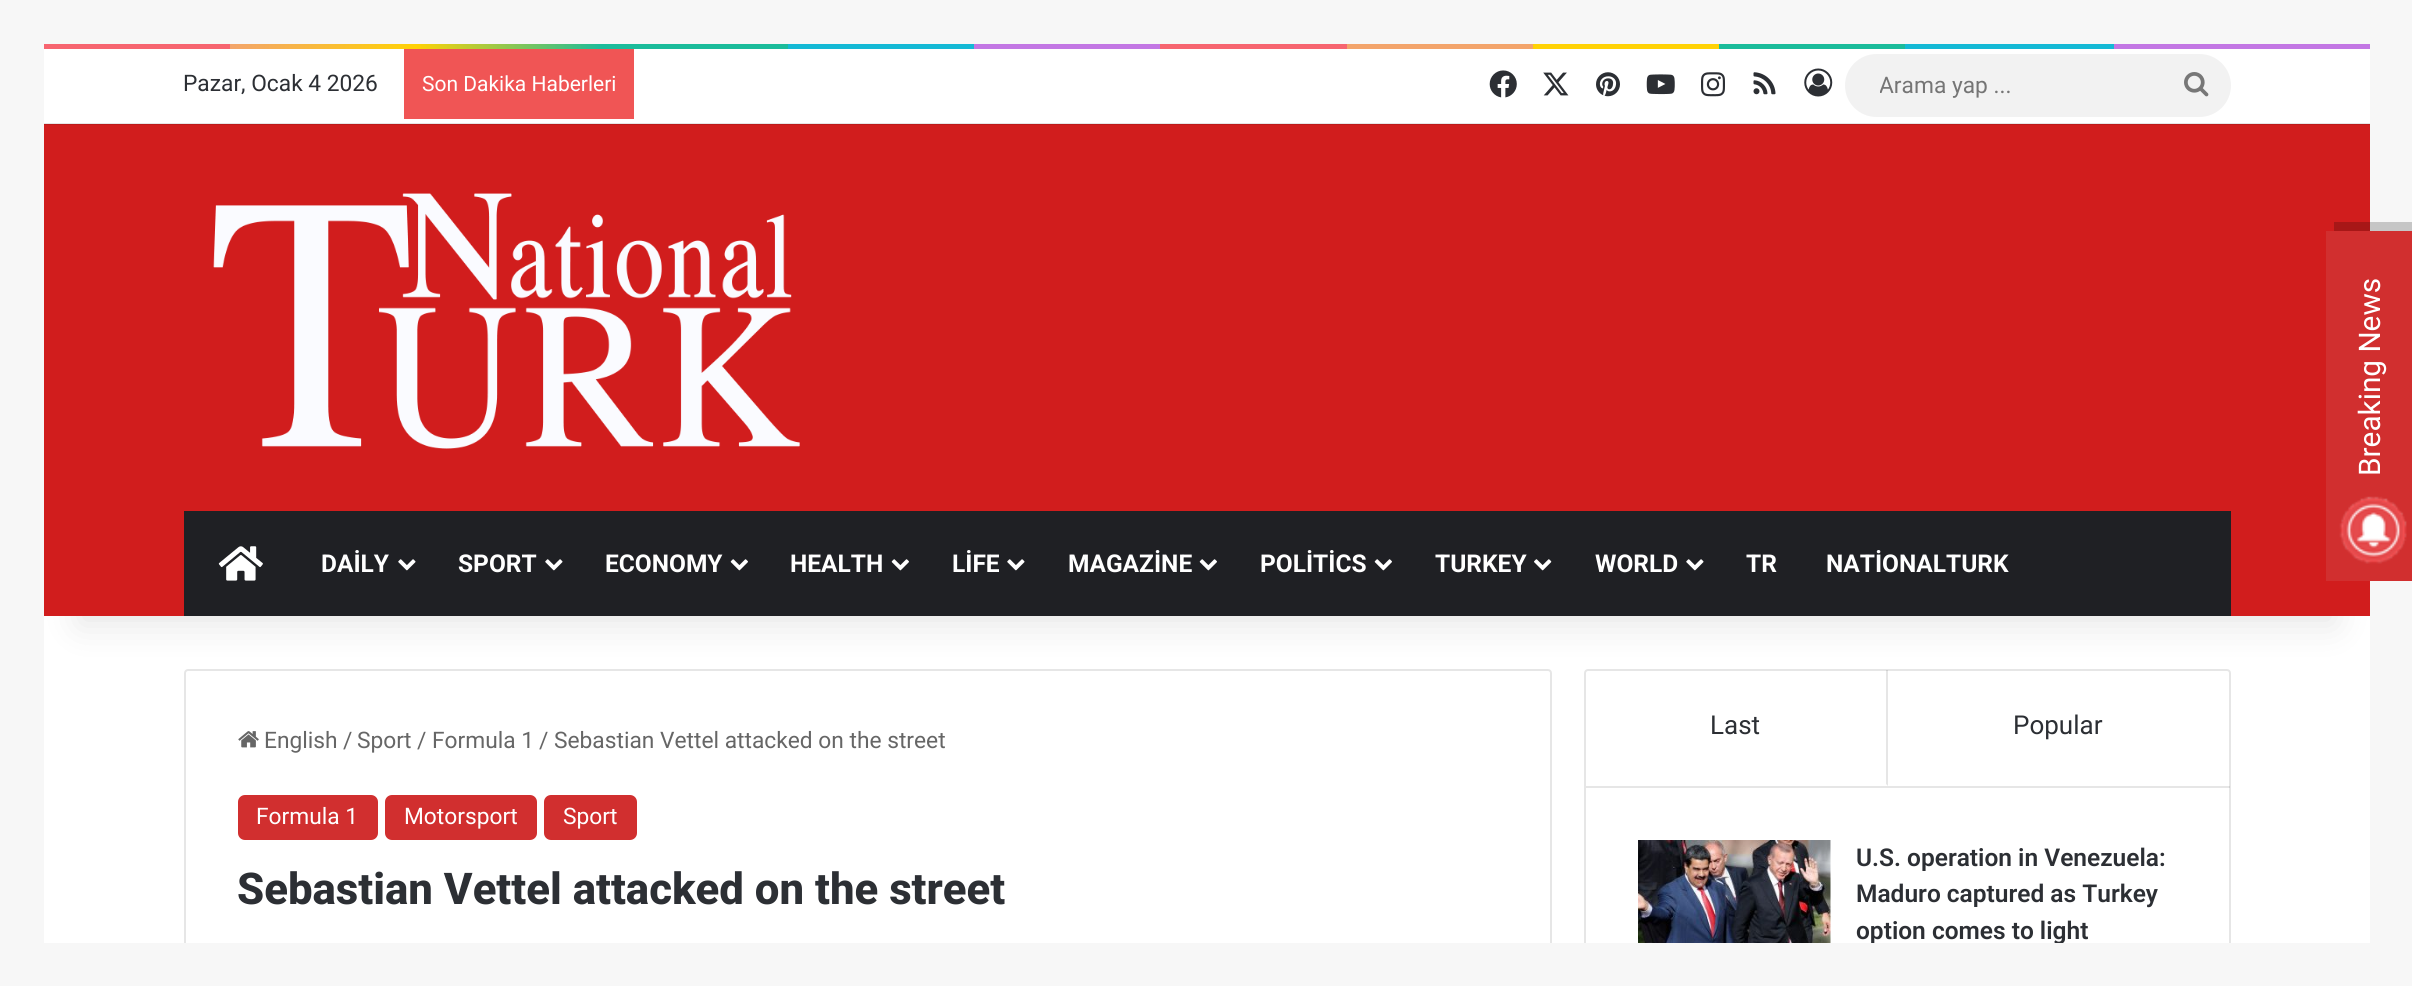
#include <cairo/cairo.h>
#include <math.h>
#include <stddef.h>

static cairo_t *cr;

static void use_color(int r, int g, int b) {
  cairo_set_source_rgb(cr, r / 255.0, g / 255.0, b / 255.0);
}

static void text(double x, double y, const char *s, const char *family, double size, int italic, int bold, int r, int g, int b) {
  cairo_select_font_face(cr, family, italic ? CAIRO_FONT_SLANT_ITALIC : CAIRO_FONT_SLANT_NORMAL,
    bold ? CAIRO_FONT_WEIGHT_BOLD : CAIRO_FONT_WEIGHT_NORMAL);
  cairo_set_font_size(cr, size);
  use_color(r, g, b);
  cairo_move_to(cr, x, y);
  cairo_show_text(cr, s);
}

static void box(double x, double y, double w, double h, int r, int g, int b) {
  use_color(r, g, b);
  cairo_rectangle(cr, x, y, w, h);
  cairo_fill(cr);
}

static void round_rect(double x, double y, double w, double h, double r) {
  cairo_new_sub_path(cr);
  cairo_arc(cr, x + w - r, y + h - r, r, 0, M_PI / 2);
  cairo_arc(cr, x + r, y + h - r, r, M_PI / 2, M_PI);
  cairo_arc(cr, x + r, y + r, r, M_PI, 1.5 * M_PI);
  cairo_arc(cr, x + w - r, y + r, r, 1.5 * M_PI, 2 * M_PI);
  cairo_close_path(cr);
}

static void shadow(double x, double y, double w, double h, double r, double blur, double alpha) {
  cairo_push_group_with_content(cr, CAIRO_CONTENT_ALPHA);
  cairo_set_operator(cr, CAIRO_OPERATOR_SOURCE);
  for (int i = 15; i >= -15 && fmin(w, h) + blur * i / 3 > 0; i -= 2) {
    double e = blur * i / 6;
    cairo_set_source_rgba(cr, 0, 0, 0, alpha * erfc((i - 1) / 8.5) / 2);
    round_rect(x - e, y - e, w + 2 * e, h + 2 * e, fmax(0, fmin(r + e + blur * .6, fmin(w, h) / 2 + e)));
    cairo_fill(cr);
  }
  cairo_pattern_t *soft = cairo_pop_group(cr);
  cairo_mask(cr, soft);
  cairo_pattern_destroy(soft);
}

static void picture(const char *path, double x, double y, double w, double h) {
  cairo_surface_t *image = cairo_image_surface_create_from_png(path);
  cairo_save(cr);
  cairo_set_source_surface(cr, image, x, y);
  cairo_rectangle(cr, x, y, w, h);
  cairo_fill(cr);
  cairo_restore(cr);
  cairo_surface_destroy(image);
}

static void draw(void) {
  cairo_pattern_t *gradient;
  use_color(247, 247, 247);
  cairo_paint(cr);
  box(44, 616, 2326, 327, 255, 255, 255);
  gradient = cairo_pattern_create_linear(44, 46, 2370, 46);
  cairo_pattern_add_color_stop_rgba(gradient, 0, 0.969, 0.396, 0.439, 1);
  cairo_pattern_add_color_stop_rgba(gradient, 0.08, 0.969, 0.396, 0.439, 1);
  cairo_pattern_add_color_stop_rgba(gradient, 0.08, 0.953, 0.643, 0.42, 1);
  cairo_pattern_add_color_stop_rgba(gradient, 0.16, 1, 0.824, 0.02, 1);
  cairo_pattern_add_color_stop_rgba(gradient, 0.24, 0.106, 0.737, 0.608, 1);
  cairo_pattern_add_color_stop_rgba(gradient, 0.32, 0.106, 0.737, 0.608, 1);
  cairo_pattern_add_color_stop_rgba(gradient, 0.32, 0.078, 0.725, 0.835, 1);
  cairo_pattern_add_color_stop_rgba(gradient, 0.4, 0.078, 0.725, 0.835, 1);
  cairo_pattern_add_color_stop_rgba(gradient, 0.4, 0.765, 0.467, 0.894, 1);
  cairo_pattern_add_color_stop_rgba(gradient, 0.48, 0.765, 0.467, 0.894, 1);
  cairo_pattern_add_color_stop_rgba(gradient, 0.48, 0.969, 0.396, 0.439, 1);
  cairo_pattern_add_color_stop_rgba(gradient, 0.56, 0.969, 0.396, 0.439, 1);
  cairo_pattern_add_color_stop_rgba(gradient, 0.56, 0.953, 0.643, 0.42, 1);
  cairo_pattern_add_color_stop_rgba(gradient, 0.64, 0.953, 0.643, 0.42, 1);
  cairo_pattern_add_color_stop_rgba(gradient, 0.64, 1, 0.824, 0.02, 1);
  cairo_pattern_add_color_stop_rgba(gradient, 0.72, 1, 0.824, 0.02, 1);
  cairo_pattern_add_color_stop_rgba(gradient, 0.72, 0.106, 0.737, 0.608, 1);
  cairo_pattern_add_color_stop_rgba(gradient, 0.8, 0.106, 0.737, 0.608, 1);
  cairo_pattern_add_color_stop_rgba(gradient, 0.8, 0.078, 0.725, 0.835, 1);
  cairo_pattern_add_color_stop_rgba(gradient, 0.89, 0.078, 0.725, 0.835, 1);
  cairo_pattern_add_color_stop_rgba(gradient, 0.89, 0.765, 0.467, 0.894, 1);
  cairo_pattern_add_color_stop_rgba(gradient, 1, 0.765, 0.467, 0.894, 1);
  cairo_set_source(cr, gradient);
  cairo_pattern_destroy(gradient);
  cairo_rectangle(cr, 44, 44, 2326, 5);
  cairo_fill(cr);
  round_rect(185, 670, 1366, 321, 3);
  use_color(230, 230, 230);
  cairo_stroke(cr);
  round_rect(1585, 670, 645, 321, 3);
  cairo_stroke(cr);
  cairo_set_source_rgba(cr, 0, 0, 0, 0.1);
  cairo_new_path(cr);
  cairo_move_to(cr, 1888, 670);
  cairo_line_to(cr, 1888, 786);
  cairo_line_to(cr, 1886, 784);
  cairo_line_to(cr, 1886, 670);
  cairo_close_path(cr);
  cairo_fill(cr);
  use_color(0, 0, 0);
  shadow(79, 128, 2256, 497, 0, 17.5, 0.1);
  box(44, 125, 2326, 491, 209, 29, 29);
  box(44, 124, 2326, 1, 188, 26, 26);
  box(44, 49, 2326, 74, 255, 255, 255);
  box(44, 123, 2326, 1, 230, 230, 230);
  box(404, 49, 230, 70, 240, 85, 85);
  picture("img_01.png", 1489, 70, 28, 28);
  picture("img_02.png", 1543, 72, 26, 24);
  picture("img_03.png", 1596, 72, 24, 25);
  picture("img_04.png", 1646, 74, 29, 21);
  picture("img_05.png", 1701, 72, 24, 25);
  picture("img_06.png", 1753, 72, 23, 23);
  picture("img_07.png", 1804, 68, 29, 29);
  use_color(242, 242, 242);
  round_rect(1845, 54, 386, 63, 31.5);
  cairo_fill(cr);
  picture("img_08.png", 2184, 72, 25, 25);
  picture("img_09.png", 213, 193, 587, 256);
  box(184, 511, 2047, 105, 31, 32, 36);
  picture("img_10.png", 218, 546, 45, 35);
  picture("img_11.png", 398, 559, 18, 12);
  picture("img_11.png", 545, 559, 18, 12);
  picture("img_12.png", 730, 559, 18, 12);
  picture("img_12.png", 891, 559, 18, 12);
  picture("img_11.png", 1007, 559, 18, 12);
  picture("img_12.png", 1199, 559, 18, 12);
  picture("img_12.png", 1374, 559, 18, 12);
  picture("img_13.png", 1534, 559, 18, 12);
  picture("img_11.png", 1686, 559, 18, 12);
  picture("img_14.png", 238, 731, 21, 17);
  use_color(209, 47, 47);
  round_rect(238, 795, 140, 45, 7);
  cairo_fill(cr);
  round_rect(385, 795, 152, 45, 7);
  cairo_fill(cr);
  round_rect(544, 795, 93, 45, 7);
  cairo_fill(cr);
  cairo_set_source_rgba(cr, 0, 0, 0, 0.1);
  cairo_rectangle(cr, 1586, 786, 644, 2);
  cairo_fill(cr);
  picture("img_15.png", 1638, 840, 193, 103);
  cairo_set_source_rgba(cr, 0, 0, 0, 0.2);
  cairo_new_path(cr);
  cairo_move_to(cr, 2334, 222);
  cairo_line_to(cr, 2334, 231);
  cairo_line_to(cr, 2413, 231);
  cairo_line_to(cr, 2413, 572);
  cairo_line_to(cr, 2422, 572);
  cairo_line_to(cr, 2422, 222);
  cairo_close_path(cr);
  cairo_fill(cr);
  box(2326, 231, 86, 350, 209, 47, 47);
  picture("img_16.png", 2339, 496, 68, 68);
  text(183, 91, "Pazar, Ocak 4 2026", "Roboto", 22.75, 0, 0, 44, 47, 52);
  text(422, 91, "Son Dakika Haberleri", "Roboto", 21, 0, 0, 255, 255, 255);
  cairo_save(cr);
  cairo_rectangle(cr, 1880, 72, 290, 26);
  cairo_clip(cr);
  text(1879, 93, "Arama yap ...", "Roboto", 22.75, 0, 0, 117, 117, 117);
  cairo_restore(cr);
  text(321, 572, "DAİLY", "Roboto", 24.5, 0, 1, 255, 255, 255);
  text(458, 572, "SPORT", "Roboto", 24.5, 0, 1, 255, 255, 255);
  text(605, 572, "ECONOMY", "Roboto", 24.5, 0, 1, 255, 255, 255);
  text(790, 572, "HEALTH", "Roboto", 24.5, 0, 1, 255, 255, 255);
  text(952, 572, "LİFE", "Roboto", 24.5, 0, 1, 255, 255, 255);
  text(1068, 572, "MAGAZİNE", "Roboto", 24.5, 0, 1, 255, 255, 255);
  text(1260, 572, "POLİTİCS", "Roboto", 24.5, 0, 1, 255, 255, 255);
  text(1435, 572, "TURKEY", "Roboto", 24.5, 0, 1, 255, 255, 255);
  text(1595, 572, "WORLD", "Roboto", 24.5, 0, 1, 255, 255, 255);
  text(1746, 572, "TR", "Roboto", 24.5, 0, 1, 255, 255, 255);
  text(1826, 572, "NATİONALTURK", "Roboto", 24.5, 0, 1, 255, 255, 255);
  text(264, 748, "English", "Roboto", 22.75, 0, 0, 102, 102, 102);
  text(343, 748, "/", "Roboto", 22.75, 0, 0, 102, 102, 102);
  text(357, 748, "Sport", "Roboto", 22.75, 0, 0, 102, 102, 102);
  text(417, 748, "/", "Roboto", 22.75, 0, 0, 102, 102, 102);
  text(432, 748, "Formula 1", "Roboto", 22.75, 0, 0, 102, 102, 102);
  text(539, 748, "/", "Roboto", 22.75, 0, 0, 102, 102, 102);
  text(554, 748, "Sebastian Vettel attacked on the street", "Roboto", 22.75, 0, 0, 102, 102, 102);
  text(256, 824, "Formula 1", "Roboto", 22.75, 0, 0, 255, 255, 255);
  text(404, 824, "Motorsport", "Roboto", 22.75, 0, 0, 255, 255, 255);
  text(563, 824, "Sport", "Roboto", 22.75, 0, 0, 255, 255, 255);
  text(237, 904, "Sebastian Vettel attacked on the street", "Roboto ExtraBold", 43.75, 0, 0, 44, 47, 52);
  text(1710, 734, "Last", "Roboto", 26, 0, 0, 44, 47, 52);
  text(2013, 734, "Popular", "Roboto", 26, 0, 0, 44, 47, 52);
  text(1856, 866, "U.S. operation in Venezuela:", "Roboto SemiBold", 24.5, 0, 0, 44, 47, 52);
  text(1856, 902, "Maduro captured as Turkey", "Roboto SemiBold", 24.5, 0, 0, 44, 47, 52);
  text(1856, 939, "option comes to light", "Roboto SemiBold", 24.5, 0, 0, 44, 47, 52);
  cairo_save(cr);
  cairo_translate(cr, 2380, 476);
  cairo_rotate(cr, -90 * M_PI / 180);
  text(0, 0, "Breaking News", "Roboto", 29.75, 0, 0, 255, 255, 255);
  cairo_restore(cr);
  box(184, 943, 2047, 43, 247, 247, 247);
}

int main(void) {
  cairo_surface_t *surface = cairo_image_surface_create(CAIRO_FORMAT_RGB24, 2412, 986);
  cr = cairo_create(surface);
  cairo_font_options_t *options = cairo_font_options_create();
  cairo_font_options_set_hint_metrics(options, CAIRO_HINT_METRICS_OFF);
  cairo_font_options_set_hint_style(options, CAIRO_HINT_STYLE_NONE);
  cairo_set_font_options(cr, options);
  cairo_set_miter_limit(cr, 4);
  draw();
  cairo_surface_write_to_png(surface, "out.png");
  cairo_font_options_destroy(options);
  cairo_destroy(cr);
  cairo_surface_destroy(surface);
  return 0;
}
